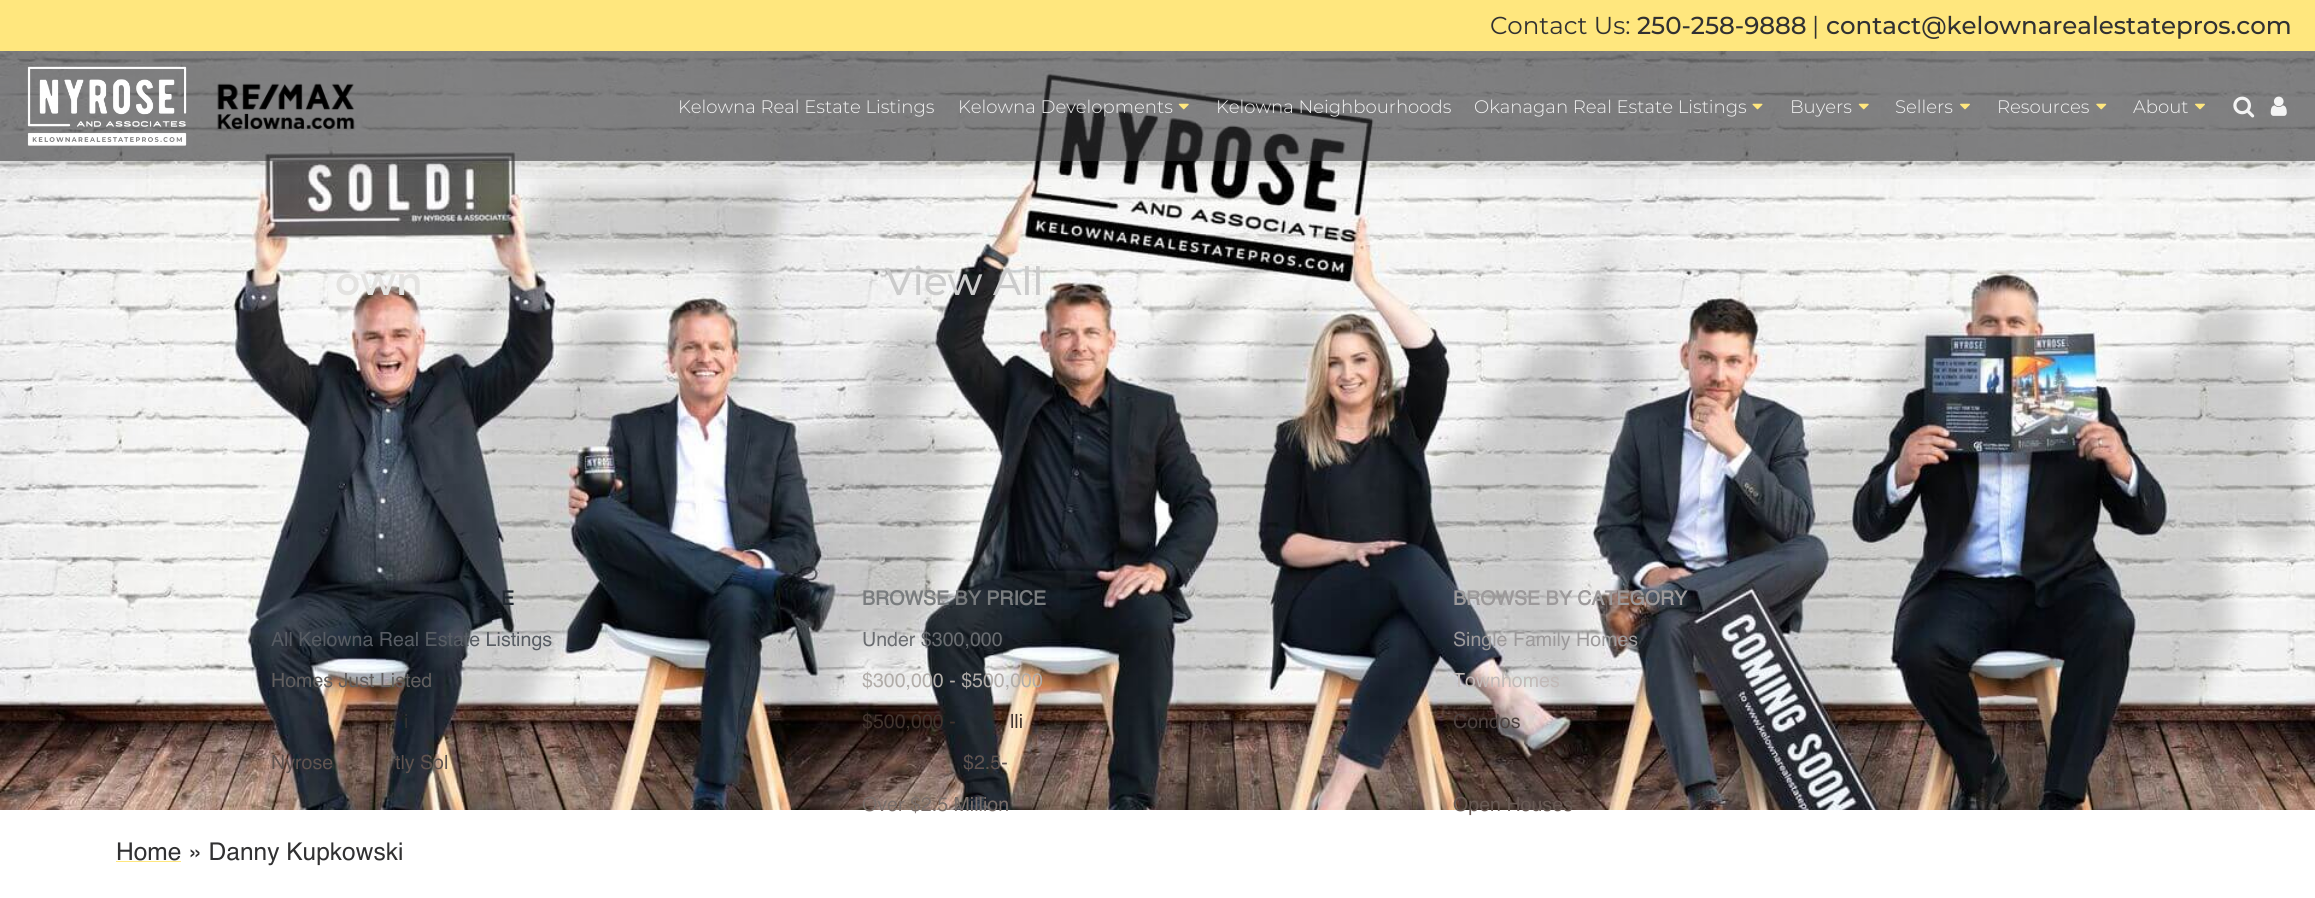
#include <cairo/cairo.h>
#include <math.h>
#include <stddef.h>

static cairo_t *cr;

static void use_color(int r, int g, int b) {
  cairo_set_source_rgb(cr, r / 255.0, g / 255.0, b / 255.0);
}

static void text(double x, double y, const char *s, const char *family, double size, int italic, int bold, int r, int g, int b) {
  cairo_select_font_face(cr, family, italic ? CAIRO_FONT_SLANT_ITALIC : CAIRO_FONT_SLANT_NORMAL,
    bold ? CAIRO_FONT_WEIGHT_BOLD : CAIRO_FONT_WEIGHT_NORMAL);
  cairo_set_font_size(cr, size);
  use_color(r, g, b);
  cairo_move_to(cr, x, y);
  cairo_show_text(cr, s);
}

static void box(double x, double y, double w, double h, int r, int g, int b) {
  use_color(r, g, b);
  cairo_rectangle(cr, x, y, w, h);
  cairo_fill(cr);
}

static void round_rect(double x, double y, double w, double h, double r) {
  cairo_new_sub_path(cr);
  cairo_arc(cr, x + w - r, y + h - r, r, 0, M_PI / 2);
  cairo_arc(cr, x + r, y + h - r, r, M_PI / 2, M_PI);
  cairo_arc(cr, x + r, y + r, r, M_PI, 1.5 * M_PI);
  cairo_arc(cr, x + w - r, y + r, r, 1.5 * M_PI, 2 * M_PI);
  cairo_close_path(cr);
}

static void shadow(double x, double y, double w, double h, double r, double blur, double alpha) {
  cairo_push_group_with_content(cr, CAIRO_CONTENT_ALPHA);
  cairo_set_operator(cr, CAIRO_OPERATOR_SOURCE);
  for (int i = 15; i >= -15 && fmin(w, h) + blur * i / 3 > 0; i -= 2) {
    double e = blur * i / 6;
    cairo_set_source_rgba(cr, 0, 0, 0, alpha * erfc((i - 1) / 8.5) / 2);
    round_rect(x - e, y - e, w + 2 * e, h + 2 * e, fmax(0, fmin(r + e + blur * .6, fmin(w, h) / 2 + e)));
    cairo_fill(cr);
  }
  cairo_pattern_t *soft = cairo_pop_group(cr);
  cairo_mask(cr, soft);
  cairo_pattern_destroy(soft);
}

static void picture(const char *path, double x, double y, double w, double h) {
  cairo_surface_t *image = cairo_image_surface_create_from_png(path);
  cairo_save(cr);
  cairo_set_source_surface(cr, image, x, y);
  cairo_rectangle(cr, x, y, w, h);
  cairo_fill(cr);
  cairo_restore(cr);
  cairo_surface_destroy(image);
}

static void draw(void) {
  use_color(255, 255, 255);
  cairo_paint(cr);
  box(0, 0, 2315, 51, 255, 231, 126);
  picture("img_11.png", 0, 51, 2315, 759);
  cairo_save(cr);
  cairo_rectangle(cr, 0, 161, 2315, 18);
  cairo_clip(cr);
  use_color(0, 0, 0);
  shadow(6, 68, 2303, 97, 0, 12.5, 0.15);
  cairo_restore(cr);
  cairo_set_source_rgba(cr, 0.192, 0.192, 0.196, 0.6);
  cairo_rectangle(cr, 0, 51, 2315, 110);
  cairo_fill(cr);
  picture("img_01.png", 1178, 103, 11, 7);
  picture("img_02.png", 1752, 103, 11, 7);
  picture("img_03.png", 1858, 103, 11, 7);
  picture("img_04.png", 1960, 103, 10, 7);
  picture("img_05.png", 2096, 103, 11, 7);
  picture("img_06.png", 2195, 103, 10, 7);
  picture("img_07.png", 2233, 96, 22, 22);
  picture("img_08.png", 2270, 96, 17, 20);
  picture("img_09.png", 27, 66, 160, 80);
  picture("img_10.png", 217, 83, 138, 47);
  box(116, 861, 65, 1, 255, 231, 126);
  text(1490, 34, "Contact Us:", "Montserrat", 24.5, 0, 0, 49, 49, 50);
  text(1637, 34, "250-258-9888", "Montserrat Medium", 24.5, 0, 0, 49, 49, 50);
  text(1812, 34, "|", "Montserrat", 24.5, 0, 0, 49, 49, 50);
  text(1826, 34, "contact@kelownarealestatepros.com", "Montserrat Medium", 24.5, 0, 0, 49, 49, 50);
  text(678, 113, "Kelowna Real Estate Listings", "Montserrat Light", 18.1, 0, 0, 244, 244, 244);
  text(958, 113, "Kelowna Developments", "Montserrat Light", 18.1, 0, 0, 244, 244, 244);
  text(1216, 113, "Kelowna Neighbourhoods", "Montserrat Light", 18.1, 0, 0, 244, 244, 244);
  text(1474, 113, "Okanagan Real Estate Listings", "Montserrat Light", 18.1, 0, 0, 244, 244, 244);
  text(1790, 113, "Buyers", "Montserrat Light", 18.1, 0, 0, 244, 244, 244);
  text(1895, 113, "Sellers", "Montserrat Light", 18.1, 0, 0, 244, 244, 244);
  text(1997, 113, "Resources", "Montserrat Light", 18.1, 0, 0, 244, 244, 244);
  text(2133, 113, "About", "Montserrat Light", 18.1, 0, 0, 244, 244, 244);
  text(335, 295, "own", "Montserrat SemiBold", 39, 0, 0, 228, 227, 225);
  text(885, 295, "View All", "Montserrat Medium", 39, 0, 0, 203, 203, 203);
  text(501, 605, "E", "Helvetica", 19.6, 0, 1, 33, 40, 48);
  text(271, 646, "All Kelowna Real Estate Listings", "Helvetica", 19.6, 0, 0, 87, 92, 99);
  text(271, 687, "Homes Just Listed", "Helvetica", 19.6, 0, 0, 98, 95, 95);
  text(404, 728, "i", "Helvetica", 19.6, 0, 0, 49, 49, 50);
  text(271, 769, "Nyrose", "Helvetica", 19.6, 0, 0, 95, 83, 79);
  text(395, 769, "tly Sol", "Helvetica", 19.6, 0, 0, 95, 83, 79);
  text(862, 605, "BROWSE BY PRICE", "Helvetica", 19.6, 0, 1, 121, 124, 126);
  text(862, 646, "Under $300,000", "Helvetica", 19.6, 0, 0, 105, 108, 112);
  text(862, 687, "$300,000 - $500,000", "Helvetica", 19.6, 0, 0, 177, 172, 168);
  text(862, 728, "$500,000 -", "Helvetica", 19.6, 0, 0, 65, 52, 46);
  text(1010, 728, "lli", "Helvetica", 19.6, 0, 0, 65, 52, 46);
  text(963, 769, "$2.5-", "Helvetica", 19.6, 0, 0, 95, 83, 79);
  text(862, 811, "Over $2.5 Million", "Helvetica", 19.6, 0, 0, 119, 109, 105);
  text(1453, 605, "BROWSE BY CATEGORY", "Helvetica", 19.6, 0, 1, 156, 153, 154);
  text(1453, 646, "Single Family Homes", "Helvetica", 19.6, 0, 0, 156, 153, 154);
  text(1453, 687, "Townhomes", "Helvetica", 19.6, 0, 0, 194, 186, 184);
  text(1453, 728, "Condos", "Helvetica", 19.6, 0, 0, 77, 66, 64);
  text(1453, 811, "Open Houses", "Helvetica", 19.6, 0, 0, 104, 90, 84);
  text(116, 860, "Home » Danny Kupkowski", "Helvetica", 24.5, 0, 0, 49, 49, 50);
}

int main(void) {
  cairo_surface_t *surface = cairo_image_surface_create(CAIRO_FORMAT_RGB24, 2315, 898);
  cr = cairo_create(surface);
  cairo_font_options_t *options = cairo_font_options_create();
  cairo_font_options_set_hint_metrics(options, CAIRO_HINT_METRICS_OFF);
  cairo_font_options_set_hint_style(options, CAIRO_HINT_STYLE_NONE);
  cairo_set_font_options(cr, options);
  cairo_set_miter_limit(cr, 4);
  draw();
  cairo_surface_write_to_png(surface, "out.png");
  cairo_font_options_destroy(options);
  cairo_destroy(cr);
  cairo_surface_destroy(surface);
  return 0;
}
